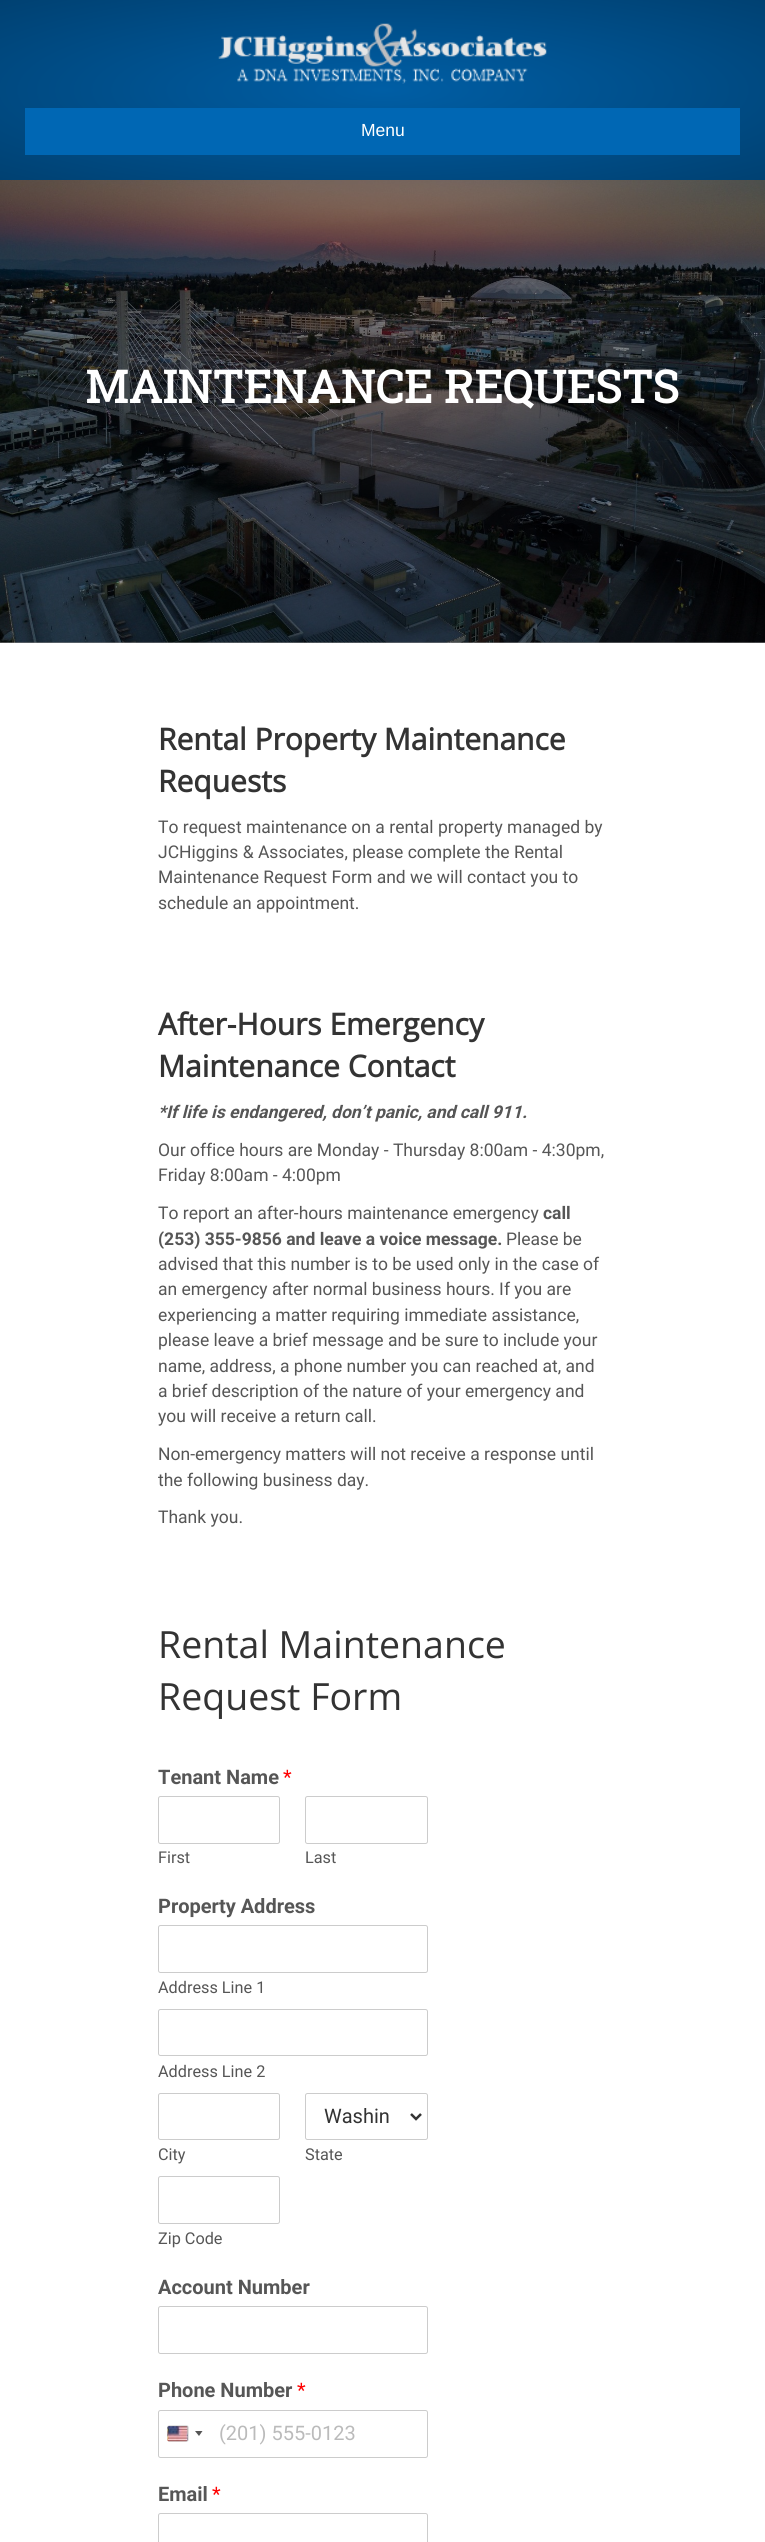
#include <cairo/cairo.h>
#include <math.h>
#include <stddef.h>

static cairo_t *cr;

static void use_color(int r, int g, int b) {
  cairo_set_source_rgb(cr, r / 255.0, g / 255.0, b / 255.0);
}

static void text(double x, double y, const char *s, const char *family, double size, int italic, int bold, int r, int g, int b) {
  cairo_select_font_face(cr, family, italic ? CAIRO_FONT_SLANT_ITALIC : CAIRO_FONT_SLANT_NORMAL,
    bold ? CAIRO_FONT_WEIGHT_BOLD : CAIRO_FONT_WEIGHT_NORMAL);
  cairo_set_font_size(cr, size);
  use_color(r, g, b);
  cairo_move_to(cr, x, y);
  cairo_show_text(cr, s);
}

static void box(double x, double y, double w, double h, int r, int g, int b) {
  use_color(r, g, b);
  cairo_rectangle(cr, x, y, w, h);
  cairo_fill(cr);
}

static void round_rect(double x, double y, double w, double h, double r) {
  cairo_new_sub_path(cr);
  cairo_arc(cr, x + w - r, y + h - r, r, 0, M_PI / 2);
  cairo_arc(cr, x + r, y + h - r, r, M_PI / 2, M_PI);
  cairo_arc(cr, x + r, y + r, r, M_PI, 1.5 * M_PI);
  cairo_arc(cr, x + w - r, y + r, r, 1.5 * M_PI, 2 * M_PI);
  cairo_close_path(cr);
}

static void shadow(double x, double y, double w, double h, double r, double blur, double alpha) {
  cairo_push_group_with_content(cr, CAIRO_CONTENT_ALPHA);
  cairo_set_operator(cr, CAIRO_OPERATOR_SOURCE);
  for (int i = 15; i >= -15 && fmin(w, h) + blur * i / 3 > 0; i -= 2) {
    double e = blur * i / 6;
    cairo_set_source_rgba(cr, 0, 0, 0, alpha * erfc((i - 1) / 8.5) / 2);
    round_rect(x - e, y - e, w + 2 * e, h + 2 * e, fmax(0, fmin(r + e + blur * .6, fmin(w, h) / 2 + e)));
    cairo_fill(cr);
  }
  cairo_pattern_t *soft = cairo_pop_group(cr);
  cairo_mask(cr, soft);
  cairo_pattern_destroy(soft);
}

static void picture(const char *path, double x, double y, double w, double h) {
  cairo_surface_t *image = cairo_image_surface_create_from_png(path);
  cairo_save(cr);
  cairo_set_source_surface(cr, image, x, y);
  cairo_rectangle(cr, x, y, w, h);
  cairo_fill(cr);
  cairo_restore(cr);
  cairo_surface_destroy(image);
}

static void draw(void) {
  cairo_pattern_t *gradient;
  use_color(255, 255, 255);
  cairo_paint(cr);
  gradient = cairo_pattern_create_radial(0, 0, 0, 0, 0, 1);
  cairo_pattern_set_matrix(gradient, &(cairo_matrix_t){1.0 / 541, 0, 0, 1.0 / 127, -1.0 * 383 / 541, -1.0 * 90 / 127});
  cairo_pattern_add_color_stop_rgba(gradient, 0, 0, 0.369, 0.647, 1);
  cairo_pattern_add_color_stop_rgba(gradient, 1, 0, 0.255, 0.447, 1);
  cairo_set_source(cr, gradient);
  cairo_pattern_destroy(gradient);
  cairo_rectangle(cr, 0, 0, 765, 180);
  cairo_fill(cr);
  picture("img_01.png", 218, 23, 329, 61);
  box(25, 108, 715, 47, 0, 103, 180);
  box(0, 642, 765, 1, 138, 138, 138);
  picture("img_02.png", 0, 180, 765, 463);
  round_rect(158.5, 1796.5, 121, 47, 2);
  use_color(204, 204, 204);
  cairo_set_line_width(cr, 1);
  cairo_stroke(cr);
  round_rect(305.5, 1796.5, 122, 47, 2);
  cairo_stroke(cr);
  round_rect(158.5, 1925.5, 269, 47, 2);
  cairo_stroke(cr);
  round_rect(158.5, 2009.5, 269, 46, 2);
  cairo_stroke(cr);
  round_rect(158.5, 2093.5, 121, 46, 2);
  cairo_stroke(cr);
  round_rect(305.5, 2093.5, 122, 46, 2);
  cairo_stroke(cr);
  cairo_new_path(cr);
  cairo_move_to(cr, 411, 2114);
  cairo_line_to(cr, 416, 2119);
  cairo_line_to(cr, 421, 2114);
  use_color(51, 51, 51);
  cairo_set_line_width(cr, 2.5);
  cairo_stroke(cr);
  round_rect(158.5, 2176.5, 121, 47, 2);
  use_color(204, 204, 204);
  cairo_set_line_width(cr, 1);
  cairo_stroke(cr);
  round_rect(158.5, 2306.5, 269, 47, 2);
  cairo_stroke(cr);
  round_rect(158.5, 2410.5, 269, 47, 2);
  cairo_stroke(cr);
  use_color(136, 136, 136);
  shadow(168, 2426, 20, 15, 1, 0.5, 1);
  picture("img_03.png", 167, 2426, 21, 16);
  use_color(85, 85, 85);
  cairo_new_path(cr);
  cairo_move_to(cr, 195, 2431);
  cairo_line_to(cr, 202.5, 2431);
  cairo_line_to(cr, 199, 2436);
  cairo_close_path(cr);
  cairo_fill(cr);
  round_rect(158.5, 2513.5, 269, 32, 2);
  use_color(204, 204, 204);
  cairo_stroke(cr);
  text(361, 136, "Menu", "Liberation Sans", 17.5, 0, 0, 255, 255, 255);
  text(85, 403, "MAINTENANCE REQUESTS", "Roboto Slab", 45, 0, 1, 255, 255, 255);
  text(158, 750, "Rental Property Maintenance", "Open Sans", 30, 0, 1, 51, 51, 51);
  text(158, 792, "Requests", "Open Sans", 30, 0, 1, 51, 51, 51);
  text(158, 833, "To request maintenance on a rental property managed by", "Roboto", 17.5, 0, 0, 86, 86, 86);
  text(158, 858, "JCHiggins & Associates, please complete the Rental", "Roboto", 17.5, 0, 0, 86, 86, 86);
  text(158, 883, "Maintenance Request Form and we will contact you to", "Roboto", 17.5, 0, 0, 86, 86, 86);
  text(158, 909, "schedule an appointment.", "Roboto", 17.5, 0, 0, 86, 86, 86);
  text(158, 1035, "After-Hours Emergency", "Open Sans", 30, 0, 1, 51, 51, 51);
  text(158, 1077, "Maintenance Contact", "Open Sans", 30, 0, 1, 51, 51, 51);
  text(158, 1118, "*If life is endangered, don’t panic, and call 911.", "Roboto", 17.5, 1, 1, 86, 86, 86);
  text(158, 1156, "Our office hours are Monday - Thursday 8:00am - 4:30pm,", "Roboto", 17.5, 0, 0, 86, 86, 86);
  text(158, 1181, "Friday 8:00am - 4:00pm", "Roboto", 17.5, 0, 0, 86, 86, 86);
  text(158, 1219, "To report an after-hours maintenance emergency", "Roboto", 17.5, 0, 0, 86, 86, 86);
  text(543, 1219, "call", "Roboto", 17.5, 0, 1, 86, 86, 86);
  text(158, 1245, "(253) 355-9856 and leave a voice message.", "Roboto", 17.5, 0, 1, 86, 86, 86);
  text(506, 1245, "Please be", "Roboto", 17.5, 0, 0, 86, 86, 86);
  text(158, 1270, "advised that this number is to be used only in the case of", "Roboto", 17.5, 0, 0, 86, 86, 86);
  text(158, 1295, "an emergency after normal business hours. If you are", "Roboto", 17.5, 0, 0, 86, 86, 86);
  text(158, 1321, "experiencing a matter requiring immediate assistance,", "Roboto", 17.5, 0, 0, 86, 86, 86);
  text(158, 1346, "please leave a brief message and be sure to include your", "Roboto", 17.5, 0, 0, 86, 86, 86);
  text(158, 1372, "name, address, a phone number you can reached at, and", "Roboto", 17.5, 0, 0, 86, 86, 86);
  text(158, 1397, "a brief description of the nature of your emergency and", "Roboto", 17.5, 0, 0, 86, 86, 86);
  text(158, 1422, "you will receive a return call.", "Roboto", 17.5, 0, 0, 86, 86, 86);
  text(158, 1460, "Non-emergency matters will not receive a response until", "Roboto", 17.5, 0, 0, 86, 86, 86);
  text(158, 1486, "the following business day.", "Roboto", 17.5, 0, 0, 86, 86, 86);
  text(158, 1523, "Thank you.", "Roboto", 17.5, 0, 0, 86, 86, 86);
  text(158, 1658, "Rental Maintenance", "Open Sans", 37.5, 0, 0, 51, 51, 51);
  text(158, 1710, "Request Form", "Open Sans", 37.5, 0, 0, 51, 51, 51);
  text(158, 1784, "Tenant Name", "Roboto", 20, 0, 1, 86, 86, 86);
  text(283, 1784, "*", "Roboto", 20, 0, 0, 255, 0, 0);
  text(158, 1863, "First", "Roboto", 16.25, 0, 0, 86, 86, 86);
  text(305, 1863, "Last", "Roboto", 16.25, 0, 0, 86, 86, 86);
  text(158, 1913, "Property Address", "Roboto", 20, 0, 1, 86, 86, 86);
  text(158, 1993, "Address Line 1", "Roboto", 16.25, 0, 0, 86, 86, 86);
  text(158, 2077, "Address Line 2", "Roboto", 16.25, 0, 0, 86, 86, 86);
  text(158, 2160, "City", "Roboto", 16.25, 0, 0, 86, 86, 86);
  text(324, 2123, "Washin", "Roboto", 20, 0, 0, 51, 51, 51);
  text(305, 2160, "State", "Roboto", 16.25, 0, 0, 86, 86, 86);
  text(158, 2244, "Zip Code", "Roboto", 16.25, 0, 0, 86, 86, 86);
  text(158, 2294, "Account Number", "Roboto", 20, 0, 1, 86, 86, 86);
  text(158, 2397, "Phone Number", "Roboto", 20, 0, 1, 86, 86, 86);
  text(297, 2397, "*", "Roboto", 20, 0, 0, 255, 0, 0);
  text(219, 2440, "(201) 555-0123", "Roboto", 20, 0, 0, 187, 187, 187);
  text(158, 2501, "Email", "Roboto", 20, 0, 1, 86, 86, 86);
  text(212, 2501, "*", "Roboto", 20, 0, 0, 255, 0, 0);
}

int main(void) {
  cairo_surface_t *surface = cairo_image_surface_create(CAIRO_FORMAT_RGB24, 765, 2542);
  cr = cairo_create(surface);
  cairo_font_options_t *options = cairo_font_options_create();
  cairo_font_options_set_hint_metrics(options, CAIRO_HINT_METRICS_OFF);
  cairo_font_options_set_hint_style(options, CAIRO_HINT_STYLE_NONE);
  cairo_set_font_options(cr, options);
  cairo_set_miter_limit(cr, 4);
  draw();
  cairo_surface_write_to_png(surface, "out.png");
  cairo_font_options_destroy(options);
  cairo_destroy(cr);
  cairo_surface_destroy(surface);
  return 0;
}
